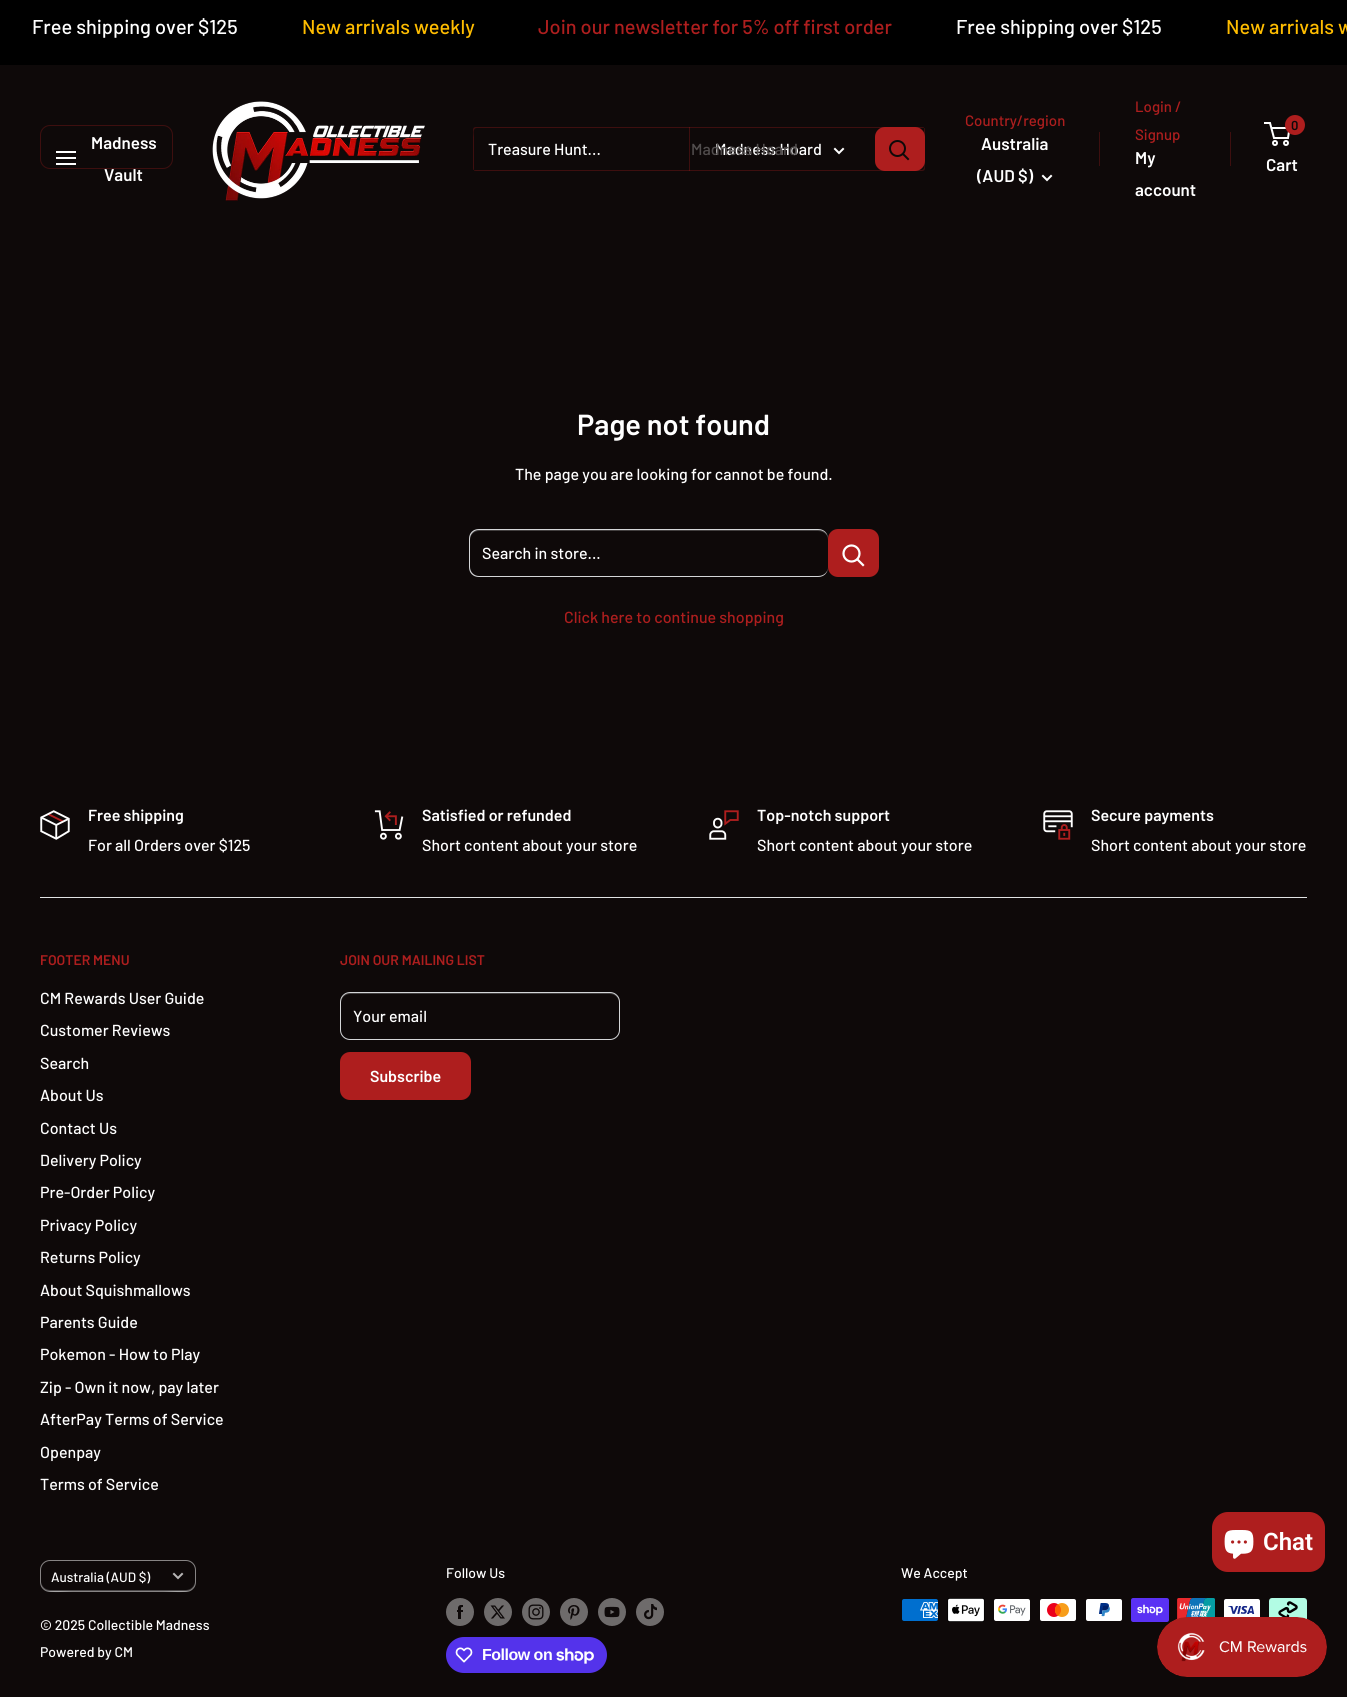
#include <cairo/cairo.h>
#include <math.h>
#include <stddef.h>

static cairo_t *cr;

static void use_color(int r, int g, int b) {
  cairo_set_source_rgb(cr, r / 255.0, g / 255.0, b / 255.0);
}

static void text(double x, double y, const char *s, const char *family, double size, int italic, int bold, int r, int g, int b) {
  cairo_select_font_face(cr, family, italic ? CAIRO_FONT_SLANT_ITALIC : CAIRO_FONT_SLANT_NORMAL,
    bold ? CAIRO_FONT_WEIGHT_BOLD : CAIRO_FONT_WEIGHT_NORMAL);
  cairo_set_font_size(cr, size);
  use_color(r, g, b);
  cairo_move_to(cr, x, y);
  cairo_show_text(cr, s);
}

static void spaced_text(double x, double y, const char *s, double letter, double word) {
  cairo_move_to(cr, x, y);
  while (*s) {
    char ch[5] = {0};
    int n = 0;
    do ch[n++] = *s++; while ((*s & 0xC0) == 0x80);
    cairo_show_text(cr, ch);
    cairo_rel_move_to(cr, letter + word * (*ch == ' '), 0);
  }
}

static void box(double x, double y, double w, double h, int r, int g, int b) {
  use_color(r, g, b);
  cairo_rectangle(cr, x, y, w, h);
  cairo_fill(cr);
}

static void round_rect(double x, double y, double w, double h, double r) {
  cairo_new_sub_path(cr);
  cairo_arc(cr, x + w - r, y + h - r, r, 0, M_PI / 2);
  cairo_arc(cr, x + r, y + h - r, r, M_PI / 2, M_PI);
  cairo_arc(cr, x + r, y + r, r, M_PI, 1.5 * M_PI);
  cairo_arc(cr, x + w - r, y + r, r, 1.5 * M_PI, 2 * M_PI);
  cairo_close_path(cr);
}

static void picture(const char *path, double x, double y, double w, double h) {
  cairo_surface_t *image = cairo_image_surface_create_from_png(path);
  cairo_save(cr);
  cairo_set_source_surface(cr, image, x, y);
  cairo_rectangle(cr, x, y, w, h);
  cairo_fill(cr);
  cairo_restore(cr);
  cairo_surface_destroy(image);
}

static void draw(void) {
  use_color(14, 9, 9);
  cairo_paint(cr);
  box(0, 0, 1347, 65, 0, 0, 0);
  round_rect(40.5, 125.5, 132, 43, 9.5);
  use_color(62, 15, 15);
  cairo_set_line_width(cr, 1);
  cairo_stroke(cr);
  picture("img_01.png", 56, 151, 20, 14);
  picture("img_02.png", 212, 101, 213, 100);
  cairo_new_path(cr);
  cairo_move_to(cr, 474, 170);
  cairo_curve_to(cr, 474, 171, 475, 171, 476, 171);
  cairo_line_to(cr, 922, 171);
  cairo_curve_to(cr, 924, 171, 925, 170, 925, 168);
  cairo_line_to(cr, 925, 130);
  cairo_curve_to(cr, 925, 129, 925, 128, 924, 128);
  cairo_line_to(cr, 924, 161);
  cairo_curve_to(cr, 924, 163, 926, 170, 921, 170);
  cairo_close_path(cr);
  cairo_fill(cr);
  cairo_new_path(cr);
  cairo_move_to(cr, 477, 128);
  cairo_line_to(cr, 924, 128);
  cairo_curve_to(cr, 924, 127, 923, 127, 922, 127);
  cairo_line_to(cr, 476, 127);
  cairo_curve_to(cr, 474, 127, 473, 128, 473, 130);
  cairo_line_to(cr, 473, 168);
  cairo_curve_to(cr, 473, 169, 473, 170, 474, 170);
  cairo_line_to(cr, 474, 137);
  cairo_curve_to(cr, 474, 135, 472, 128, 477, 128);
  cairo_close_path(cr);
  cairo_fill(cr);
  cairo_set_source_rgba(cr, 0.682, 0.118, 0.118, 0.3);
  cairo_rectangle(cr, 689, 127, 1, 44);
  cairo_fill(cr);
  cairo_new_path(cr);
  cairo_move_to(cr, 843, 149);
  cairo_line_to(cr, 839, 153);
  cairo_line_to(cr, 835, 149);
  use_color(255, 255, 255);
  cairo_set_line_width(cr, 2);
  cairo_set_line_cap(cr, CAIRO_LINE_CAP_SQUARE);
  cairo_stroke(cr);
  use_color(174, 30, 30);
  round_rect(875, 127, 50, 44, 10);
  cairo_fill(cr);
  cairo_new_path(cr);
  cairo_move_to(cr, 908, 159);
  cairo_line_to(cr, 903, 154);
  use_color(14, 9, 9);
  cairo_stroke(cr);
  cairo_arc(cr, 897.5, 148.5, 7.5, 0, 2 * M_PI);
  cairo_set_line_cap(cr, CAIRO_LINE_CAP_BUTT);
  cairo_stroke(cr);
  cairo_new_path(cr);
  cairo_move_to(cr, 1051, 176);
  cairo_line_to(cr, 1047, 180);
  cairo_line_to(cr, 1043, 176);
  use_color(255, 255, 255);
  cairo_set_line_cap(cr, CAIRO_LINE_CAP_SQUARE);
  cairo_stroke(cr);
  box(1099, 132, 1, 34, 62, 15, 15);
  box(1230, 132, 1, 34, 62, 15, 15);
  cairo_arc(cr, 1275, 143, 2, 0, 2 * M_PI);
  use_color(255, 255, 255);
  cairo_set_line_cap(cr, CAIRO_LINE_CAP_BUTT);
  cairo_stroke(cr);
  cairo_arc(cr, 1286, 143, 2, 0, 2 * M_PI);
  cairo_stroke(cr);
  cairo_new_path(cr);
  cairo_move_to(cr, 1271.5, 128);
  cairo_line_to(cr, 1289.5, 128);
  cairo_line_to(cr, 1288, 138);
  cairo_line_to(cr, 1274, 138);
  cairo_line_to(cr, 1270, 123);
  cairo_line_to(cr, 1264, 123);
  cairo_stroke(cr);
  use_color(174, 30, 30);
  cairo_arc(cr, 1295, 125, 10, 0, 2 * M_PI);
  cairo_fill(cr);
  use_color(67, 64, 64);
  cairo_new_path(cr);
  cairo_move_to(cr, 479, 531);
  cairo_line_to(cr, 818, 531);
  cairo_curve_to(cr, 824, 531, 828, 535, 828, 540);
  cairo_line_to(cr, 828, 539);
  cairo_curve_to(cr, 828, 534, 824, 530, 818, 530);
  cairo_line_to(cr, 479, 530);
  cairo_curve_to(cr, 474, 530, 470, 534, 470, 539);
  cairo_line_to(cr, 470, 540);
  cairo_curve_to(cr, 470, 535, 474, 531, 479, 531);
  cairo_close_path(cr);
  cairo_fill(cr);
  use_color(212, 214, 216);
  cairo_set_fill_rule(cr, CAIRO_FILL_RULE_EVEN_ODD);
  cairo_new_path(cr);
  cairo_move_to(cr, 479, 529);
  cairo_line_to(cr, 818, 529);
  cairo_curve_to(cr, 824, 529, 828, 533, 828, 539);
  cairo_line_to(cr, 828, 567);
  cairo_curve_to(cr, 828, 573, 824, 577, 818, 577);
  cairo_line_to(cr, 479, 577);
  cairo_curve_to(cr, 473, 577, 469, 573, 469, 567);
  cairo_line_to(cr, 469, 539);
  cairo_curve_to(cr, 469, 533, 473, 529, 479, 529);
  cairo_close_path(cr);
  cairo_move_to(cr, 479, 530);
  cairo_line_to(cr, 818, 530);
  cairo_curve_to(cr, 824, 530, 828, 534, 828, 539);
  cairo_line_to(cr, 828, 567);
  cairo_curve_to(cr, 828, 572, 824, 576, 818, 576);
  cairo_line_to(cr, 479, 576);
  cairo_curve_to(cr, 474, 576, 470, 572, 470, 567);
  cairo_line_to(cr, 470, 539);
  cairo_curve_to(cr, 470, 534, 474, 530, 479, 530);
  cairo_close_path(cr);
  cairo_fill(cr);
  use_color(174, 30, 30);
  round_rect(828, 529, 51, 48, 10);
  cairo_fill(cr);
  cairo_new_path(cr);
  cairo_move_to(cr, 863, 565);
  cairo_line_to(cr, 857.5, 559.5);
  use_color(255, 255, 255);
  cairo_set_line_width(cr, 2.2);
  cairo_set_line_cap(cr, CAIRO_LINE_CAP_SQUARE);
  cairo_stroke(cr);
  cairo_arc(cr, 851.5, 553.5, 8, 0, 2 * M_PI);
  cairo_set_line_cap(cr, CAIRO_LINE_CAP_BUTT);
  cairo_stroke(cr);
  picture("img_03.png", 40, 810, 30, 30);
  picture("img_04.png", 374, 810, 30, 30);
  picture("img_05.png", 709, 810, 30, 30);
  picture("img_06.png", 1043, 810, 30, 30);
  box(40, 897, 1267, 1, 225, 227, 228);
  use_color(67, 64, 64);
  cairo_set_fill_rule(cr, CAIRO_FILL_RULE_WINDING);
  cairo_new_path(cr);
  cairo_move_to(cr, 350, 994);
  cairo_line_to(cr, 610, 994);
  cairo_curve_to(cr, 615, 994, 619, 998, 619, 1003);
  cairo_curve_to(cr, 619, 998, 617, 994, 612, 993);
  cairo_line_to(cr, 348, 993);
  cairo_curve_to(cr, 344, 994, 341, 998, 341, 1002);
  cairo_line_to(cr, 341, 1003);
  cairo_curve_to(cr, 341, 998, 345, 994, 350, 994);
  cairo_close_path(cr);
  cairo_fill(cr);
  round_rect(340.5, 992.5, 279, 47, 9.5);
  use_color(212, 214, 216);
  cairo_set_line_width(cr, 1);
  cairo_stroke(cr);
  use_color(174, 30, 30);
  round_rect(340, 1052, 131, 48, 10);
  cairo_fill(cr);
  use_color(77, 74, 75);
  cairo_new_path(cr);
  cairo_move_to(cr, 41, 1581);
  cairo_curve_to(cr, 41, 1597, 64, 1591, 73, 1591);
  cairo_line_to(cr, 163, 1591);
  cairo_curve_to(cr, 172, 1591, 195, 1597, 195, 1581);
  cairo_curve_to(cr, 195, 1586, 191, 1590, 186, 1590);
  cairo_line_to(cr, 50, 1590);
  cairo_curve_to(cr, 45, 1590, 41, 1586, 41, 1581);
  cairo_close_path(cr);
  cairo_fill(cr);
  round_rect(40.5, 1560.5, 155, 31, 9.5);
  cairo_set_source_rgba(cr, 1, 1, 1, 0.5);
  cairo_stroke(cr);
  cairo_new_path(cr);
  cairo_move_to(cr, 182, 1574);
  cairo_line_to(cr, 178, 1578);
  cairo_line_to(cr, 174, 1574);
  use_color(183, 181, 181);
  cairo_set_line_width(cr, 2);
  cairo_set_line_cap(cr, CAIRO_LINE_CAP_SQUARE);
  cairo_stroke(cr);
  picture("img_07.png", 446, 1598, 28, 28);
  picture("img_08.png", 484, 1598, 28, 28);
  picture("img_09.png", 522, 1598, 28, 28);
  picture("img_10.png", 560, 1598, 28, 28);
  picture("img_11.png", 598, 1598, 28, 28);
  picture("img_12.png", 636, 1598, 28, 28);
  use_color(84, 51, 235);
  round_rect(446, 1637, 161, 36, 18);
  cairo_fill(cr);
  picture("img_13.png", 455, 1647, 18, 16);
  picture("img_14.png", 556, 1648, 38, 16);
  picture("img_15.png", 902, 1599, 36, 22);
  picture("img_16.png", 947, 1598, 38, 24);
  picture("img_17.png", 994, 1599, 36, 22);
  picture("img_18.png", 1040, 1599, 36, 22);
  picture("img_19.png", 1086, 1599, 36, 22);
  picture("img_20.png", 1131, 1598, 38, 24);
  picture("img_21.png", 1177, 1598, 38, 21);
  picture("img_22.png", 1224, 1599, 36, 18);
  picture("img_23.png", 1269, 1598, 38, 21);
  use_color(174, 30, 30);
  round_rect(1212, 1512, 113, 60, 16);
  cairo_fill(cr);
  picture("img_24.png", 1224, 1530, 30, 29);
  picture("img_25.png", 1157, 1617, 170, 60);
  text(32, 34, "Free shipping over $125", "Barlow Medium", 20, 0, 0, 255, 255, 255);
  text(302, 34, "New arrivals weekly", "Barlow Medium", 20, 0, 0, 255, 189, 0);
  text(538, 34, "Join our newsletter for 5% off first order", "Barlow Medium", 20, 0, 0, 174, 30, 30);
  text(956, 34, "Free shipping over $125", "Barlow Medium", 20, 0, 0, 255, 255, 255);
  text(1226, 34, "New arrivals w", "Barlow Medium", 20, 0, 0, 255, 189, 0);
  text(91, 149, "Madness", "Barlow SemiBold", 17, 0, 0, 255, 255, 255);
  text(104, 181, "Vault", "Barlow SemiBold", 17, 0, 0, 255, 255, 255);
  text(488, 155, "Treasure Hunt...", "Barlow Medium", 16, 0, 0, 255, 255, 255);
  text(715, 155, "Madness Hoard", "Barlow Medium", 16, 0, 0, 255, 255, 255);
  text(691, 155, "Madness Hoard", "Barlow Medium", 16, 0, 0, 82, 78, 78);
  text(965, 126, "Country/region", "Barlow Medium", 15, 0, 0, 174, 30, 30);
  text(981, 150, "Australia", "Barlow SemiBold", 17, 0, 0, 255, 255, 255);
  text(977, 182, "(AUD $)", "Barlow SemiBold", 17, 0, 0, 255, 255, 255);
  text(1135, 112, "Login /", "Barlow Medium", 15, 0, 0, 174, 30, 30);
  text(1135, 140, "Signup", "Barlow Medium", 15, 0, 0, 174, 30, 30);
  text(1135, 164, "My", "Barlow SemiBold", 17, 0, 0, 255, 255, 255);
  text(1135, 196, "account", "Barlow SemiBold", 17, 0, 0, 255, 255, 255);
  text(1291, 130, "0", "Barlow SemiBold", 13, 0, 0, 14, 9, 9);
  text(1266, 171, "Cart", "Barlow SemiBold", 17, 0, 0, 255, 255, 255);
  text(577, 435, "Page not found", "Barlow SemiBold", 29, 0, 0, 255, 255, 255);
  text(515, 480, "The page you are looking for cannot be found.", "Barlow Medium", 16, 0, 0, 255, 255, 255);
  text(482, 559, "Search in store...", "Barlow Medium", 16, 0, 0, 255, 255, 255);
  text(564, 623, "Click here to continue shopping", "Barlow Medium", 16, 0, 0, 174, 30, 30);
  text(88, 821, "Free shipping", "Barlow SemiBold", 16, 0, 0, 255, 255, 255);
  text(88, 851, "For all Orders over $125", "Barlow Medium", 16, 0, 0, 255, 255, 255);
  text(422, 821, "Satisfied or refunded", "Barlow SemiBold", 16, 0, 0, 255, 255, 255);
  text(422, 851, "Short content about your store", "Barlow Medium", 16, 0, 0, 255, 255, 255);
  text(757, 821, "Top-notch support", "Barlow SemiBold", 16, 0, 0, 255, 255, 255);
  text(757, 851, "Short content about your store", "Barlow Medium", 16, 0, 0, 255, 255, 255);
  text(1091, 821, "Secure payments", "Barlow SemiBold", 16, 0, 0, 255, 255, 255);
  text(1091, 851, "Short content about your store", "Barlow Medium", 16, 0, 0, 255, 255, 255);
  text(40, 965, "FOOTER MENU", "Barlow SemiBold", 14, 0, 0, 174, 30, 30);
  text(40, 1004, "CM Rewards User Guide", "Barlow Medium", 16, 0, 0, 255, 255, 255);
  text(40, 1036, "Customer Reviews", "Barlow Medium", 16, 0, 0, 255, 255, 255);
  text(40, 1069, "Search", "Barlow Medium", 16, 0, 0, 255, 255, 255);
  text(40, 1101, "About Us", "Barlow Medium", 16, 0, 0, 255, 255, 255);
  text(40, 1134, "Contact Us", "Barlow Medium", 16, 0, 0, 255, 255, 255);
  text(40, 1166, "Delivery Policy", "Barlow Medium", 16, 0, 0, 255, 255, 255);
  text(40, 1198, "Pre-Order Policy", "Barlow Medium", 16, 0, 0, 255, 255, 255);
  text(40, 1231, "Privacy Policy", "Barlow Medium", 16, 0, 0, 255, 255, 255);
  text(40, 1263, "Returns Policy", "Barlow Medium", 16, 0, 0, 255, 255, 255);
  text(40, 1296, "About Squishmallows", "Barlow Medium", 16, 0, 0, 255, 255, 255);
  text(40, 1328, "Parents Guide", "Barlow Medium", 16, 0, 0, 255, 255, 255);
  text(40, 1360, "Pokemon - How to Play", "Barlow Medium", 16, 0, 0, 255, 255, 255);
  text(40, 1393, "Zip - Own it now, pay later", "Barlow Medium", 16, 0, 0, 255, 255, 255);
  text(40, 1425, "AfterPay Terms of Service", "Barlow Medium", 16, 0, 0, 255, 255, 255);
  text(40, 1458, "Openpay", "Barlow Medium", 16, 0, 0, 255, 255, 255);
  text(40, 1490, "Terms of Service", "Barlow Medium", 16, 0, 0, 255, 255, 255);
  text(340, 965, "JOIN OUR MAILING LIST", "Barlow SemiBold", 14, 0, 0, 174, 30, 30);
  text(353, 1022, "Your email", "Barlow Medium", 16, 0, 0, 255, 255, 255);
  text(370, 1082, "Subscribe", "Barlow SemiBold", 16, 0, 0, 255, 255, 255);
  text(51, 1582, "Australia (AUD $)", "Barlow Medium", 13.5, 0, 0, 255, 255, 255);
  text(40, 1630, "© 2025 Collectible Madness", "Barlow Medium", 14, 0, 0, 255, 255, 255);
  text(40, 1657, "Powered by CM", "Barlow Medium", 14, 0, 0, 255, 255, 255);
  text(446, 1578, "Follow Us", "Barlow Medium", 14, 0, 0, 255, 255, 255);
  cairo_select_font_face(cr, "Liberation Sans", CAIRO_FONT_SLANT_NORMAL, CAIRO_FONT_WEIGHT_BOLD);
  cairo_set_font_size(cr, 16);
  spaced_text(482, 1660, "Follow on", -0.5, 0);
  text(901, 1578, "We Accept", "Barlow Medium", 14, 0, 0, 255, 255, 255);
  text(1263, 1550, "Chat", "Roboto SemiBold", 24, 0, 0, 255, 255, 255);
}

int main(void) {
  cairo_surface_t *surface = cairo_image_surface_create(CAIRO_FORMAT_RGB24, 1347, 1697);
  cr = cairo_create(surface);
  cairo_font_options_t *options = cairo_font_options_create();
  cairo_font_options_set_hint_metrics(options, CAIRO_HINT_METRICS_OFF);
  cairo_font_options_set_hint_style(options, CAIRO_HINT_STYLE_NONE);
  cairo_set_font_options(cr, options);
  cairo_set_miter_limit(cr, 4);
  draw();
  cairo_surface_write_to_png(surface, "out.png");
  cairo_font_options_destroy(options);
  cairo_destroy(cr);
  cairo_surface_destroy(surface);
  return 0;
}
